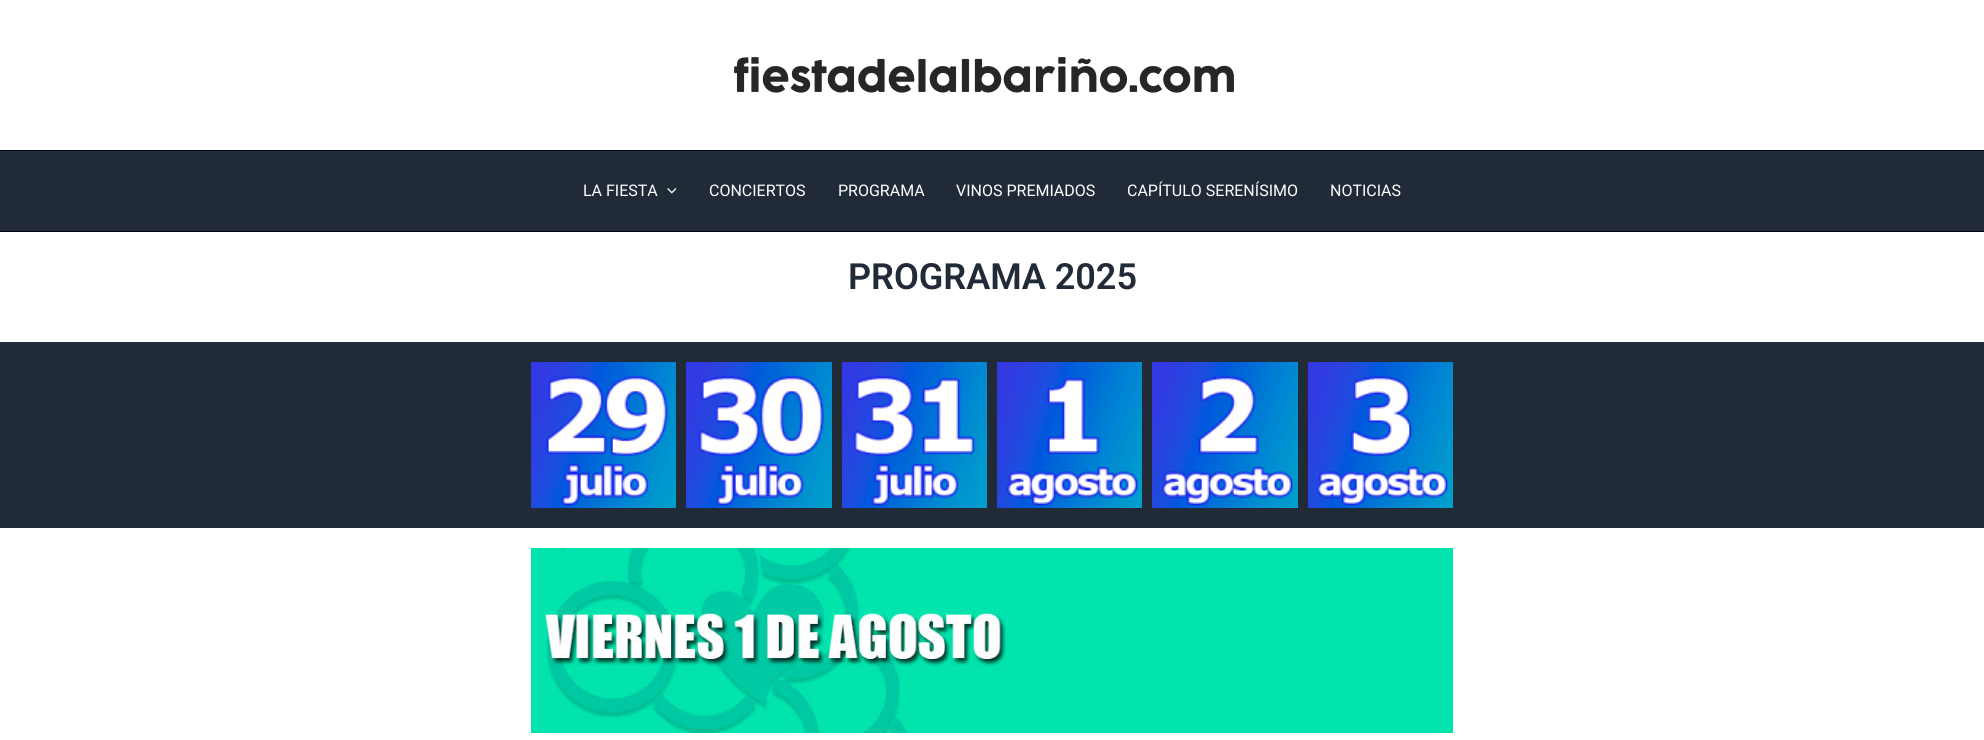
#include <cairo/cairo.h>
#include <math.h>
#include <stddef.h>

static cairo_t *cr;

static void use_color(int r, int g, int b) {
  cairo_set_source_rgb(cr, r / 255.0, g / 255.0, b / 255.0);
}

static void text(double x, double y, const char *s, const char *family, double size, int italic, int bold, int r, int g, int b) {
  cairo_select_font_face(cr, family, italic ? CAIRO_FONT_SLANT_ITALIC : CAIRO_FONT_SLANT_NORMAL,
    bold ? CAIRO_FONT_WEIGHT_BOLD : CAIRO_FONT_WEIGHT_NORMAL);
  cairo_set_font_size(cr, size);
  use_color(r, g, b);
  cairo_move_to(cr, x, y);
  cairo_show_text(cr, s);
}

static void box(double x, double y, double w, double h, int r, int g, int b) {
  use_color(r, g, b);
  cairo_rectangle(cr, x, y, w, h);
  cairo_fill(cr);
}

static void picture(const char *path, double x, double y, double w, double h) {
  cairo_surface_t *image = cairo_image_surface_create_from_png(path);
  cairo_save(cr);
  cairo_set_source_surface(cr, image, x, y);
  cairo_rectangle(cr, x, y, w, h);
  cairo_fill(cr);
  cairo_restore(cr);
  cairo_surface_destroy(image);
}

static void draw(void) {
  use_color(255, 255, 255);
  cairo_paint(cr);
  box(0, 150, 1984, 1, 7, 6, 20);
  picture("img_01.png", 734, 57, 500, 36);
  box(0, 151, 1984, 80, 33, 42, 55);
  box(0, 231, 1984, 1, 7, 6, 20);
  picture("img_02.png", 667, 188, 10, 6);
  box(0, 342, 1984, 186, 33, 42, 55);
  picture("img_03.png", 531, 362, 145, 146);
  picture("img_04.png", 686, 362, 146, 146);
  picture("img_05.png", 842, 362, 145, 146);
  picture("img_06.png", 997, 362, 145, 146);
  picture("img_07.png", 1152, 362, 146, 146);
  picture("img_08.png", 1308, 362, 145, 146);
  picture("img_09.png", 531, 548, 922, 185);
  text(583, 196, "LA FIESTA", "Roboto", 16, 0, 0, 255, 255, 255);
  text(709, 196, "CONCIERTOS", "Roboto", 16, 0, 0, 255, 255, 255);
  text(838, 196, "PROGRAMA", "Roboto", 16, 0, 0, 255, 255, 255);
  text(956, 196, "VINOS PREMIADOS", "Roboto", 16, 0, 0, 255, 255, 255);
  text(1127, 196, "CAPÍTULO SERENÍSIMO", "Roboto", 16, 0, 0, 255, 255, 255);
  text(1330, 196, "NOTICIAS", "Roboto", 16, 0, 0, 255, 255, 255);
  text(848, 289, "PROGRAMA 2025", "Roboto SemiBold", 36, 0, 0, 33, 42, 55);
}

int main(void) {
  cairo_surface_t *surface = cairo_image_surface_create(CAIRO_FORMAT_RGB24, 1984, 740);
  cr = cairo_create(surface);
  cairo_font_options_t *options = cairo_font_options_create();
  cairo_font_options_set_hint_metrics(options, CAIRO_HINT_METRICS_OFF);
  cairo_font_options_set_hint_style(options, CAIRO_HINT_STYLE_NONE);
  cairo_set_font_options(cr, options);
  cairo_set_miter_limit(cr, 4);
  draw();
  cairo_surface_write_to_png(surface, "out.png");
  cairo_font_options_destroy(options);
  cairo_destroy(cr);
  cairo_surface_destroy(surface);
  return 0;
}
